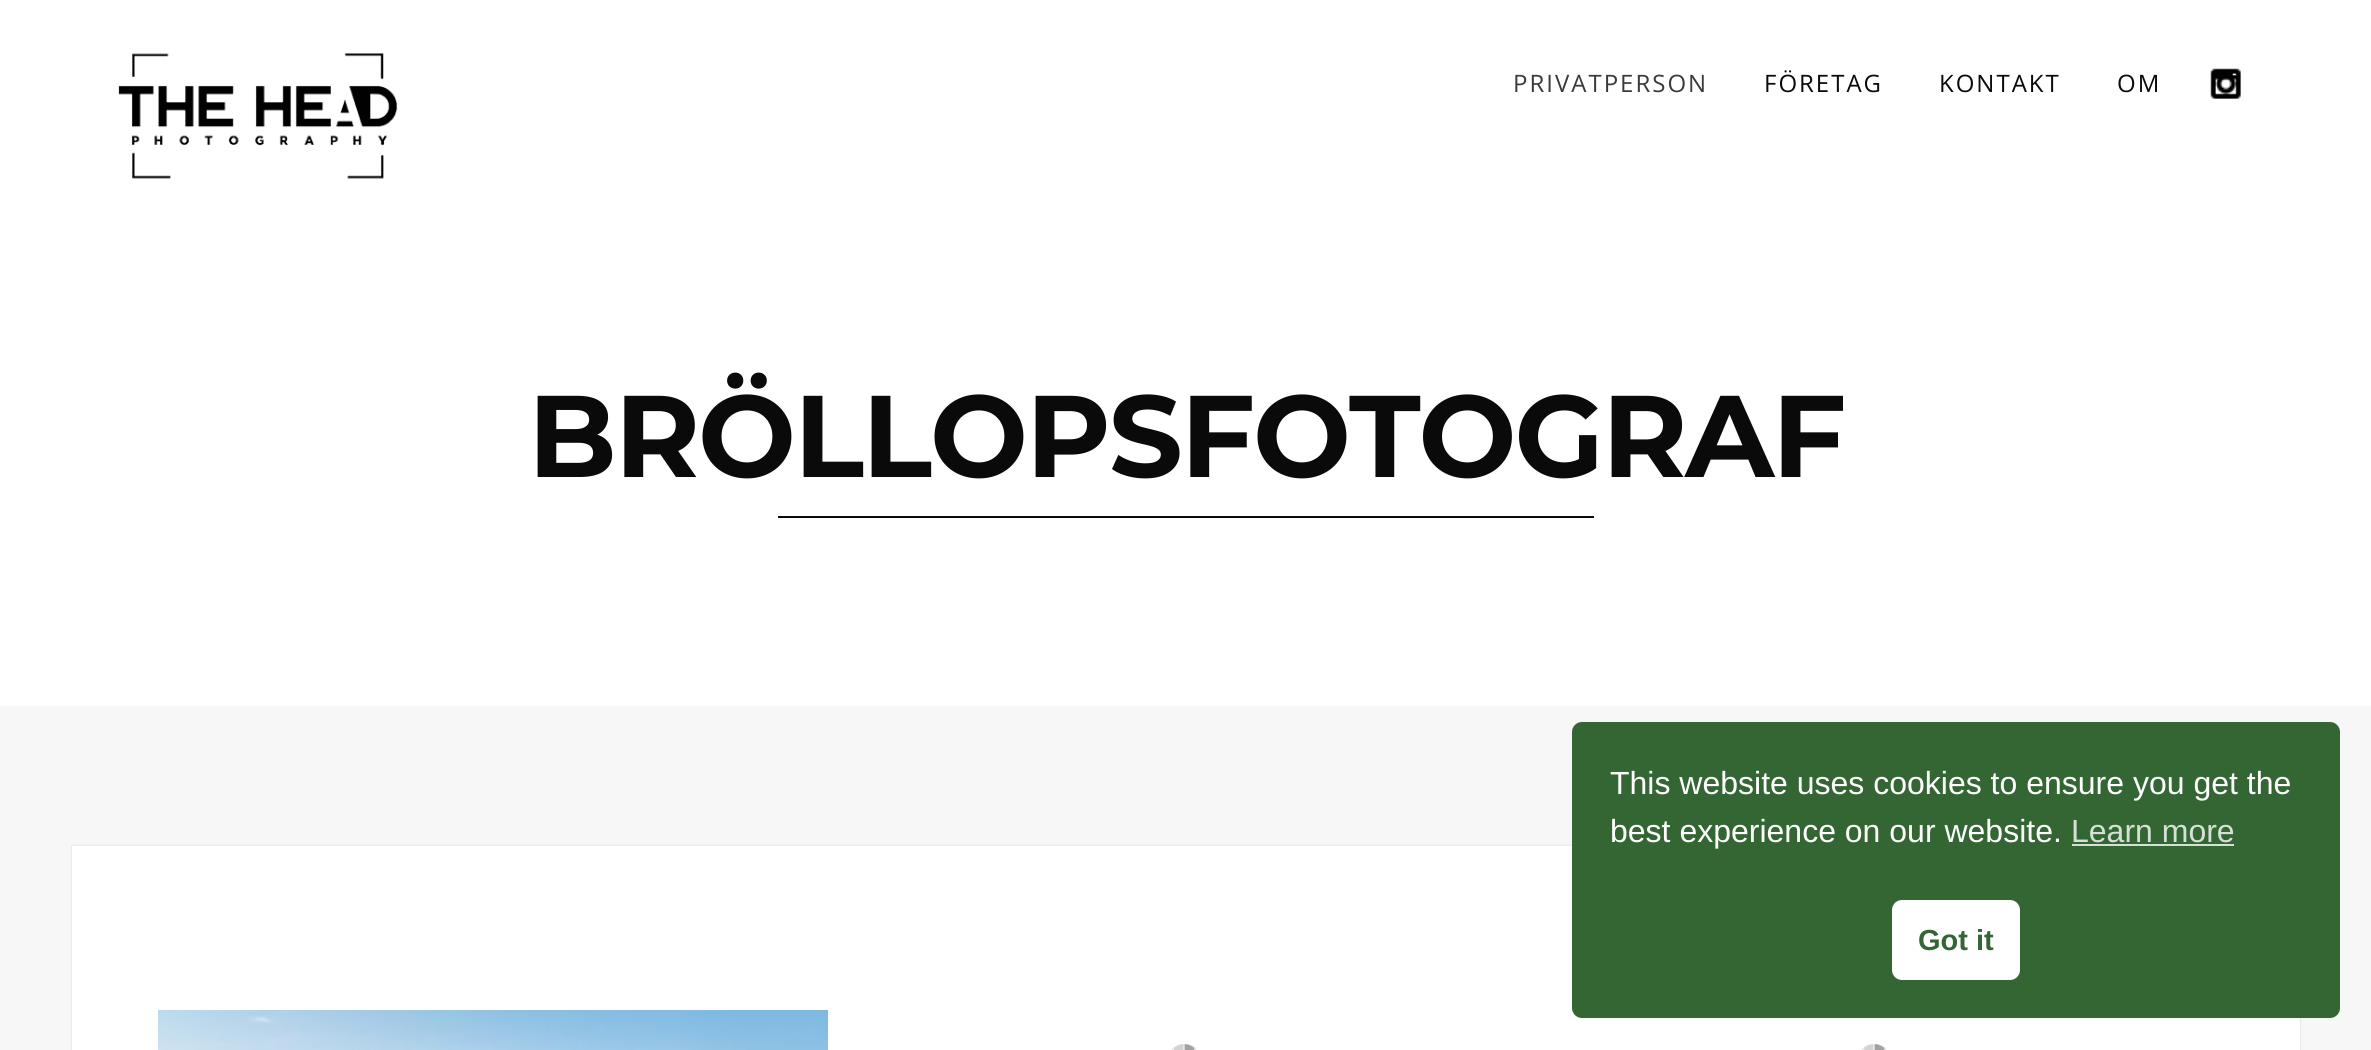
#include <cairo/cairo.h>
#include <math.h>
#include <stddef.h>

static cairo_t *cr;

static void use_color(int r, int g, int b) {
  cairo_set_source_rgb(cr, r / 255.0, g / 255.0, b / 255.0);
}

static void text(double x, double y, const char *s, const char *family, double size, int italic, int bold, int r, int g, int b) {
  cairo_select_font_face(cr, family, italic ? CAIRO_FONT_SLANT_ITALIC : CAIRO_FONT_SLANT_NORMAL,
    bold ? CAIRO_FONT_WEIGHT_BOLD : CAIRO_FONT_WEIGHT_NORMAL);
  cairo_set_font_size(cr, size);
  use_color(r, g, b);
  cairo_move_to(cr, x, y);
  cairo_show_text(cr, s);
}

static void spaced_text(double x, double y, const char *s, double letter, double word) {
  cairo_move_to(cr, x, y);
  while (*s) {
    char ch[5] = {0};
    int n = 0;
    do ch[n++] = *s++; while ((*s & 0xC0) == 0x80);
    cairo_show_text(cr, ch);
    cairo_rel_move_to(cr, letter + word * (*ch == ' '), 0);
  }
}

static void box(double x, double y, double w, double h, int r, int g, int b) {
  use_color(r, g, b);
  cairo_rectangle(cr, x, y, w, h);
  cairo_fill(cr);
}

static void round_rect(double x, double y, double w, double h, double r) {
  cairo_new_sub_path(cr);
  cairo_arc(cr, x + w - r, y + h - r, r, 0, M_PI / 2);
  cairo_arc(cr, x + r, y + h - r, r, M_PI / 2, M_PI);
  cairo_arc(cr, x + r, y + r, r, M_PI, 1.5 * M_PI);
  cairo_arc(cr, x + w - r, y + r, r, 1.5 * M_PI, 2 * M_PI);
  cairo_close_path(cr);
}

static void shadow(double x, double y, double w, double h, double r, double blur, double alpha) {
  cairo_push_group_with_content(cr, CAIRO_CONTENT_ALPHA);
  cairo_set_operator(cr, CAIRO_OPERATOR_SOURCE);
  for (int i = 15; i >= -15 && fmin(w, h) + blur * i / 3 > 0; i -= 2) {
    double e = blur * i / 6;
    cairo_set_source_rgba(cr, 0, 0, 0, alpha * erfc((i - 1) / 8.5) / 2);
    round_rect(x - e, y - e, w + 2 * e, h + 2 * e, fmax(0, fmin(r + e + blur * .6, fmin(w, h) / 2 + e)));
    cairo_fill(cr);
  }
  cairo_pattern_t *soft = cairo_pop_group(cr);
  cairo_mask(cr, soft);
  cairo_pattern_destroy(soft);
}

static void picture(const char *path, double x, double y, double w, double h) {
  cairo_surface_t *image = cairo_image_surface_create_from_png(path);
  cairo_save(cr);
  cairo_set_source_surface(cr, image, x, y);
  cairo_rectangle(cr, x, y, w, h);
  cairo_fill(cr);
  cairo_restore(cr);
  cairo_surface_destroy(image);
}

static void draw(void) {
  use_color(247, 247, 247);
  cairo_paint(cr);
  box(0, 0, 2371, 706, 255, 255, 255);
  picture("img_01.png", 118, 52, 280, 127);
  picture("img_02.png", 2210, 68, 31, 31);
  box(778, 516, 816, 2, 10, 10, 10);
  use_color(0, 0, 0);
  shadow(72, 846, 2228, 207, 0, 1, 0.15);
  box(72, 846, 2228, 204, 255, 255, 255);
  picture("img_03.png", 158, 1010, 670, 40);
  picture("img_04.png", 1171, 1044, 26, 6);
  picture("img_04.png", 1861, 1044, 26, 6);
  use_color(51, 102, 51);
  round_rect(1572, 722, 768, 296, 10);
  cairo_fill(cr);
  box(2072, 844, 162, 2, 214, 224, 214);
  use_color(255, 255, 255);
  round_rect(1892, 900, 128, 80, 10);
  cairo_fill(cr);
  cairo_select_font_face(cr, "Open Sans", CAIRO_FONT_SLANT_NORMAL, CAIRO_FONT_WEIGHT_NORMAL);
  cairo_set_font_size(cr, 24);
  use_color(59, 59, 59);
  spaced_text(1513, 92, "PRIVATPERSON", 2, 0);
  use_color(10, 10, 10);
  spaced_text(1764, 92, "FÖRETAG", 2, 0);
  spaced_text(1939, 92, "KONTAKT", 2, 0);
  spaced_text(2117, 92, "OM", 2, 0);
  cairo_select_font_face(cr, "Montserrat", CAIRO_FONT_SLANT_NORMAL, CAIRO_FONT_WEIGHT_BOLD);
  cairo_set_font_size(cr, 116);
  spaced_text(528, 477, "BRÖLLOPSFOTOGRAF", -2, 0);
  text(1610, 794, "This website uses cookies to ensure you get the", "Liberation Sans", 32, 0, 0, 255, 255, 255);
  text(1610, 842, "best experience on our website.", "Liberation Sans", 32, 0, 0, 255, 255, 255);
  text(2071, 842, "Learn more", "Liberation Sans", 32, 0, 0, 214, 224, 214);
  text(1918, 950, "Got it", "Liberation Sans", 29, 0, 1, 51, 102, 51);
}

int main(void) {
  cairo_surface_t *surface = cairo_image_surface_create(CAIRO_FORMAT_RGB24, 2371, 1050);
  cr = cairo_create(surface);
  cairo_font_options_t *options = cairo_font_options_create();
  cairo_font_options_set_hint_metrics(options, CAIRO_HINT_METRICS_OFF);
  cairo_font_options_set_hint_style(options, CAIRO_HINT_STYLE_NONE);
  cairo_set_font_options(cr, options);
  cairo_set_miter_limit(cr, 4);
  draw();
  cairo_surface_write_to_png(surface, "out.png");
  cairo_font_options_destroy(options);
  cairo_destroy(cr);
  cairo_surface_destroy(surface);
  return 0;
}
